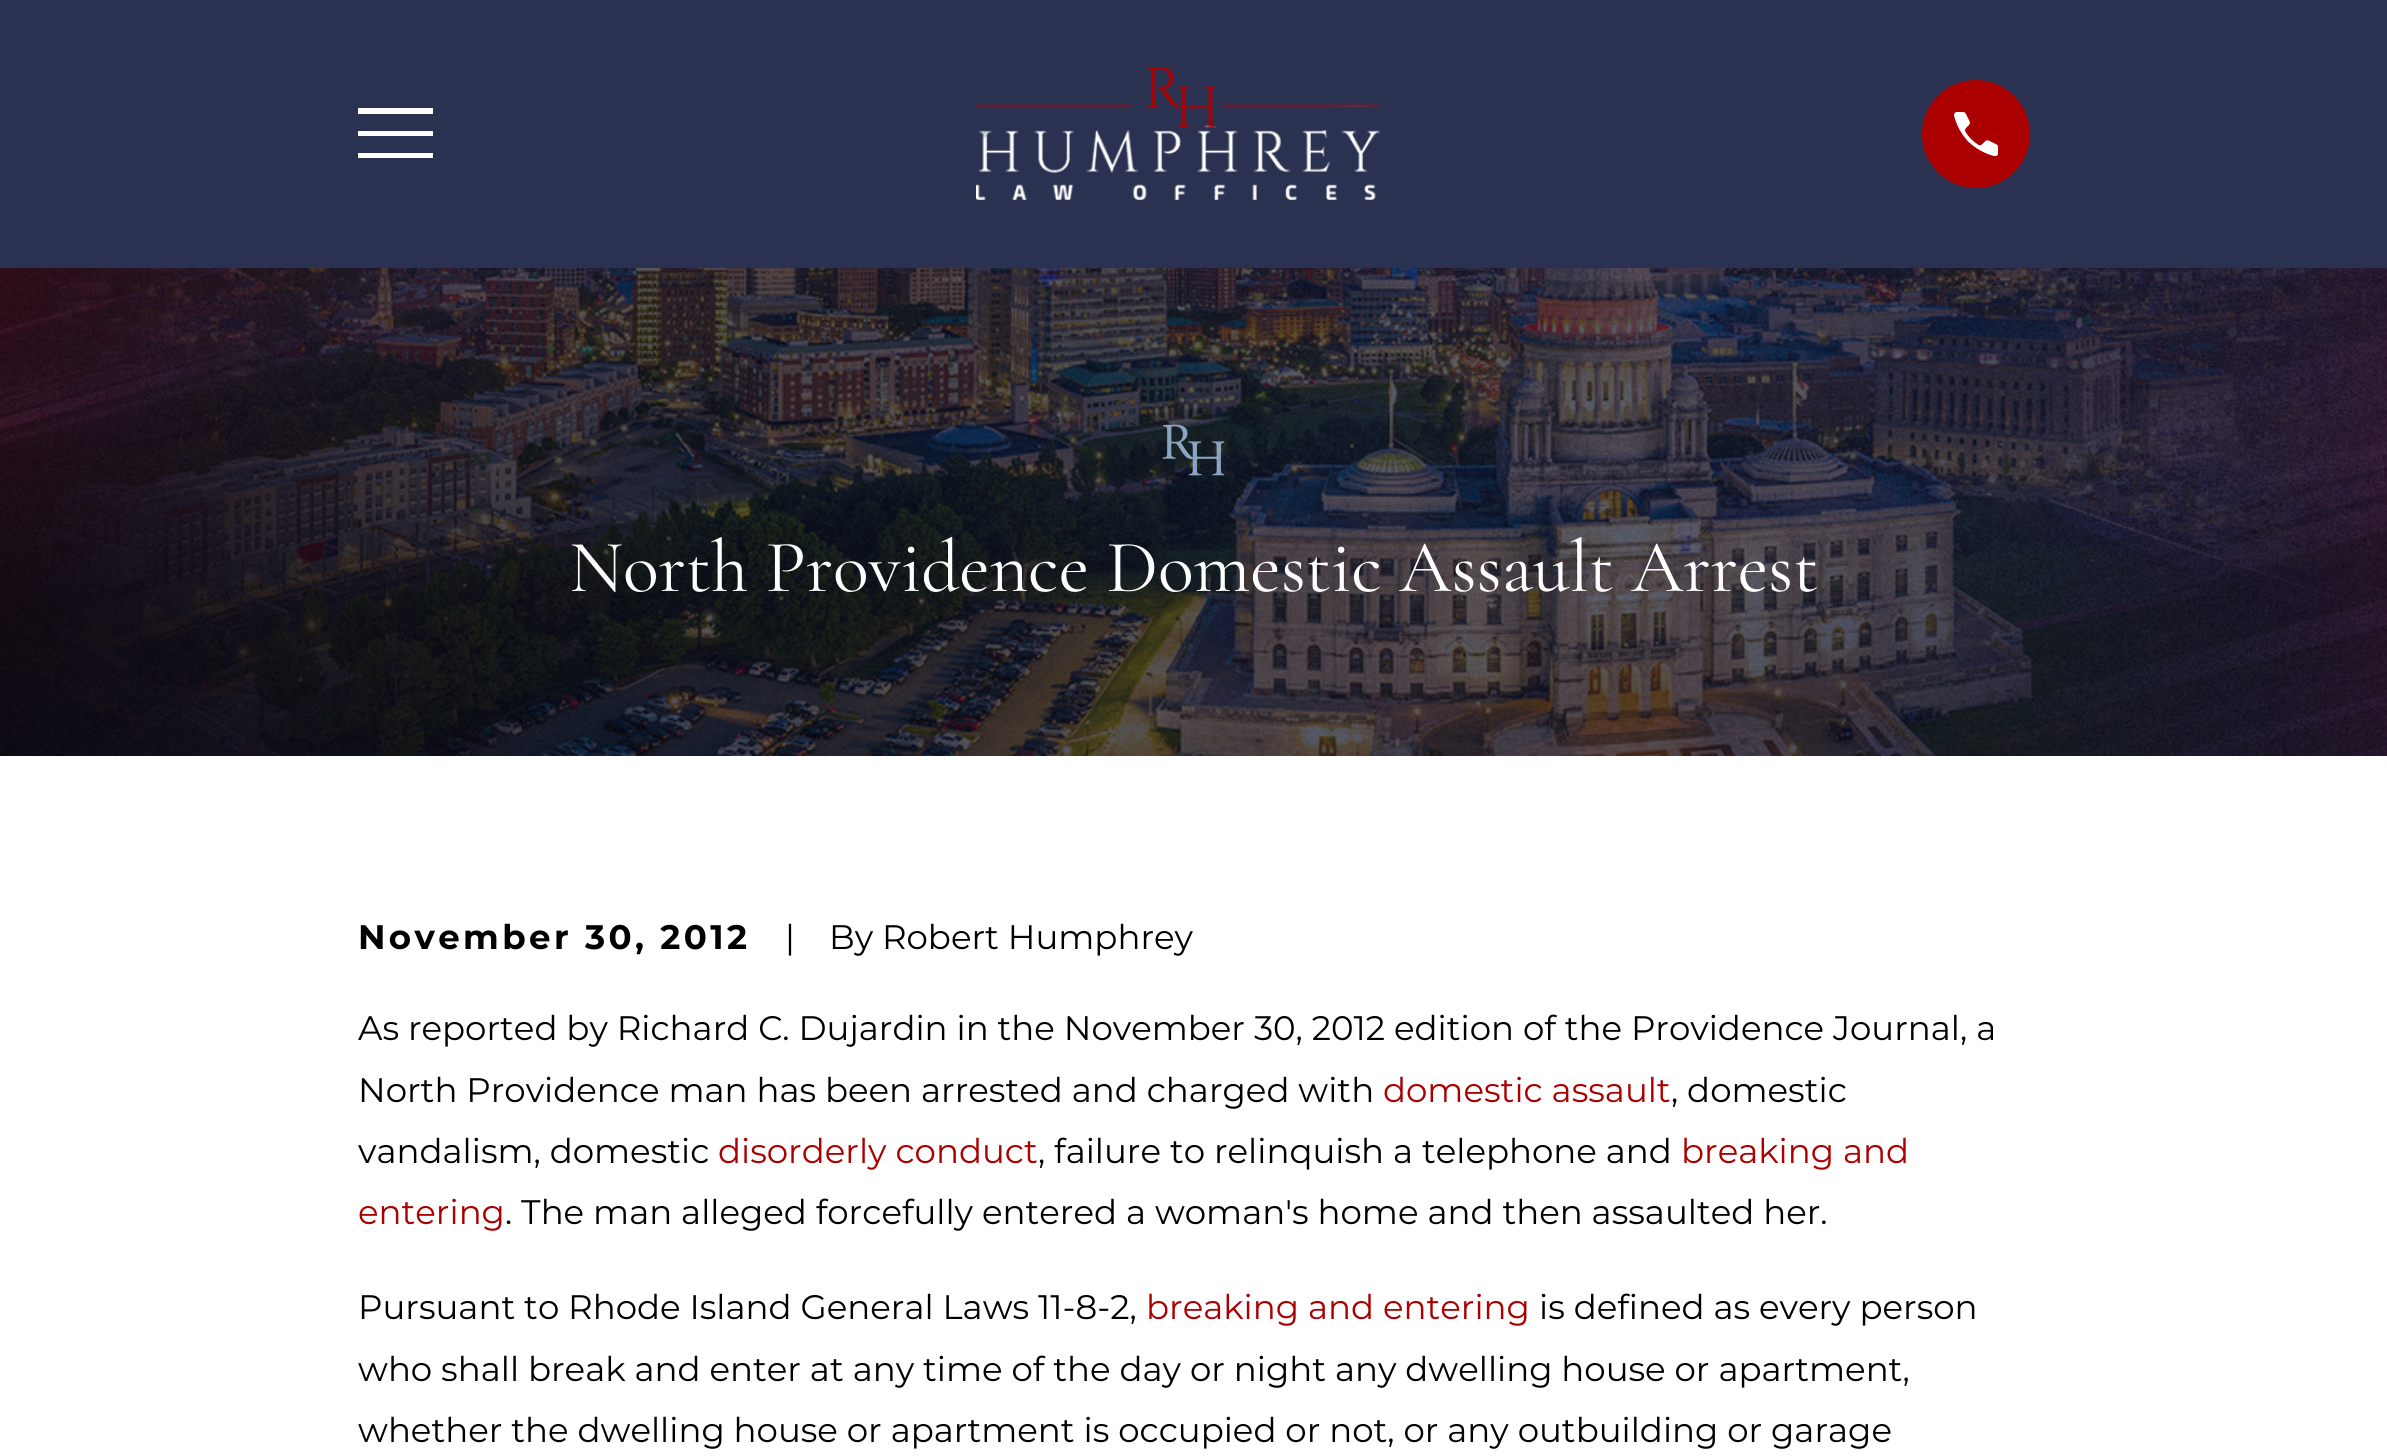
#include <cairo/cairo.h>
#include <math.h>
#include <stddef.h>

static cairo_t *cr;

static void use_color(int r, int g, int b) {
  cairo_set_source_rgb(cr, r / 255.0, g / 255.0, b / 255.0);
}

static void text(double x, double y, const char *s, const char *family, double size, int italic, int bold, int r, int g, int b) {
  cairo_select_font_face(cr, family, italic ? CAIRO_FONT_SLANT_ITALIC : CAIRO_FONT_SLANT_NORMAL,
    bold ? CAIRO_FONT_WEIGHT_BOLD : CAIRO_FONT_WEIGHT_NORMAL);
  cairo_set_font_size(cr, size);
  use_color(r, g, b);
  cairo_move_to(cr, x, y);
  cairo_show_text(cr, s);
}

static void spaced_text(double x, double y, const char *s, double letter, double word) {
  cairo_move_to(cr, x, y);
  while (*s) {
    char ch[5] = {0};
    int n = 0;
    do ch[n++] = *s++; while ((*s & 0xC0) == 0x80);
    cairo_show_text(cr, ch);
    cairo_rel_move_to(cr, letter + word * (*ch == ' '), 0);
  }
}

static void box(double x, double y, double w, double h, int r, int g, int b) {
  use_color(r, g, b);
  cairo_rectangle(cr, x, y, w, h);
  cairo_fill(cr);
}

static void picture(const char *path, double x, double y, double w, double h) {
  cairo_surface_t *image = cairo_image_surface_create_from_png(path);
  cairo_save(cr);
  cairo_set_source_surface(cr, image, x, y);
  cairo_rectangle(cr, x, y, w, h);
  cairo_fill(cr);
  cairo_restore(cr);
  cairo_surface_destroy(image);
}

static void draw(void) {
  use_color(255, 255, 255);
  cairo_paint(cr);
  box(0, 0, 2387, 268, 43, 49, 81);
  use_color(255, 255, 255);
  cairo_new_path(cr);
  cairo_move_to(cr, 358, 108);
  cairo_line_to(cr, 358, 114);
  cairo_line_to(cr, 433, 114);
  cairo_line_to(cr, 433, 108);
  cairo_close_path(cr);
  cairo_move_to(cr, 358, 131);
  cairo_line_to(cr, 358, 136);
  cairo_line_to(cr, 433, 136);
  cairo_line_to(cr, 433, 131);
  cairo_close_path(cr);
  cairo_move_to(cr, 358, 153);
  cairo_line_to(cr, 358, 158);
  cairo_line_to(cr, 433, 158);
  cairo_line_to(cr, 433, 153);
  cairo_close_path(cr);
  cairo_fill(cr);
  picture("img_01.png", 976, 68, 404, 132);
  use_color(170, 0, 0);
  cairo_arc(cr, 1976, 134, 54, 0, 2 * M_PI);
  cairo_fill(cr);
  picture("img_02.png", 1954, 112, 44, 44);
  picture("img_03.png", 0, 268, 2387, 488);
  picture("img_04.png", 1162, 424, 62, 52);
  text(569, 591, "North Providence Domestic Assault Arrest", "Cormorant Garamond", 74.4, 0, 0, 255, 255, 255);
  cairo_select_font_face(cr, "Montserrat", CAIRO_FONT_SLANT_NORMAL, CAIRO_FONT_WEIGHT_BOLD);
  cairo_set_font_size(cr, 34);
  use_color(0, 0, 0);
  spaced_text(358, 949, "November 30, 2012", 3.4, 0);
  text(785, 949, "|", "Montserrat", 34, 0, 0, 0, 0, 0);
  text(829, 949, "By Robert Humphrey", "Montserrat", 34, 0, 0, 0, 0, 0);
  text(358, 1040, "As reported by Richard C. Dujardin in the November 30, 2012 edition of the Providence Journal, a", "Montserrat", 34, 0, 0, 0, 0, 0);
  text(358, 1102, "North Providence man has been arrested and charged with", "Montserrat", 34, 0, 0, 0, 0, 0);
  text(1383, 1102, "domestic assault", "Montserrat", 34, 0, 0, 170, 0, 0);
  text(1671, 1102, ", domestic", "Montserrat", 34, 0, 0, 0, 0, 0);
  text(358, 1163, "vandalism, domestic", "Montserrat", 34, 0, 0, 0, 0, 0);
  text(718, 1163, "disorderly conduct", "Montserrat", 34, 0, 0, 170, 0, 0);
  text(1038, 1163, ", failure to relinquish a telephone and", "Montserrat", 34, 0, 0, 0, 0, 0);
  text(1681, 1163, "breaking and", "Montserrat", 34, 0, 0, 170, 0, 0);
  text(358, 1224, "entering", "Montserrat", 34, 0, 0, 170, 0, 0);
  text(505, 1224, ". The man alleged forcefully entered a woman's home and then assaulted her.", "Montserrat", 34, 0, 0, 0, 0, 0);
  text(358, 1319, "Pursuant to Rhode Island General Laws 11-8-2,", "Montserrat", 34, 0, 0, 0, 0, 0);
  text(1146, 1319, "breaking and entering", "Montserrat", 34, 0, 0, 170, 0, 0);
  text(1539, 1319, "is defined as every person", "Montserrat", 34, 0, 0, 0, 0, 0);
  text(358, 1381, "who shall break and enter at any time of the day or night any dwelling house or apartment,", "Montserrat", 34, 0, 0, 0, 0, 0);
  text(358, 1442, "whether the dwelling house or apartment is occupied or not, or any outbuilding or garage", "Montserrat", 34, 0, 0, 0, 0, 0);
}

int main(void) {
  cairo_surface_t *surface = cairo_image_surface_create(CAIRO_FORMAT_RGB24, 2387, 1456);
  cr = cairo_create(surface);
  cairo_font_options_t *options = cairo_font_options_create();
  cairo_font_options_set_hint_metrics(options, CAIRO_HINT_METRICS_OFF);
  cairo_font_options_set_hint_style(options, CAIRO_HINT_STYLE_NONE);
  cairo_set_font_options(cr, options);
  cairo_set_miter_limit(cr, 4);
  draw();
  cairo_surface_write_to_png(surface, "out.png");
  cairo_font_options_destroy(options);
  cairo_destroy(cr);
  cairo_surface_destroy(surface);
  return 0;
}
